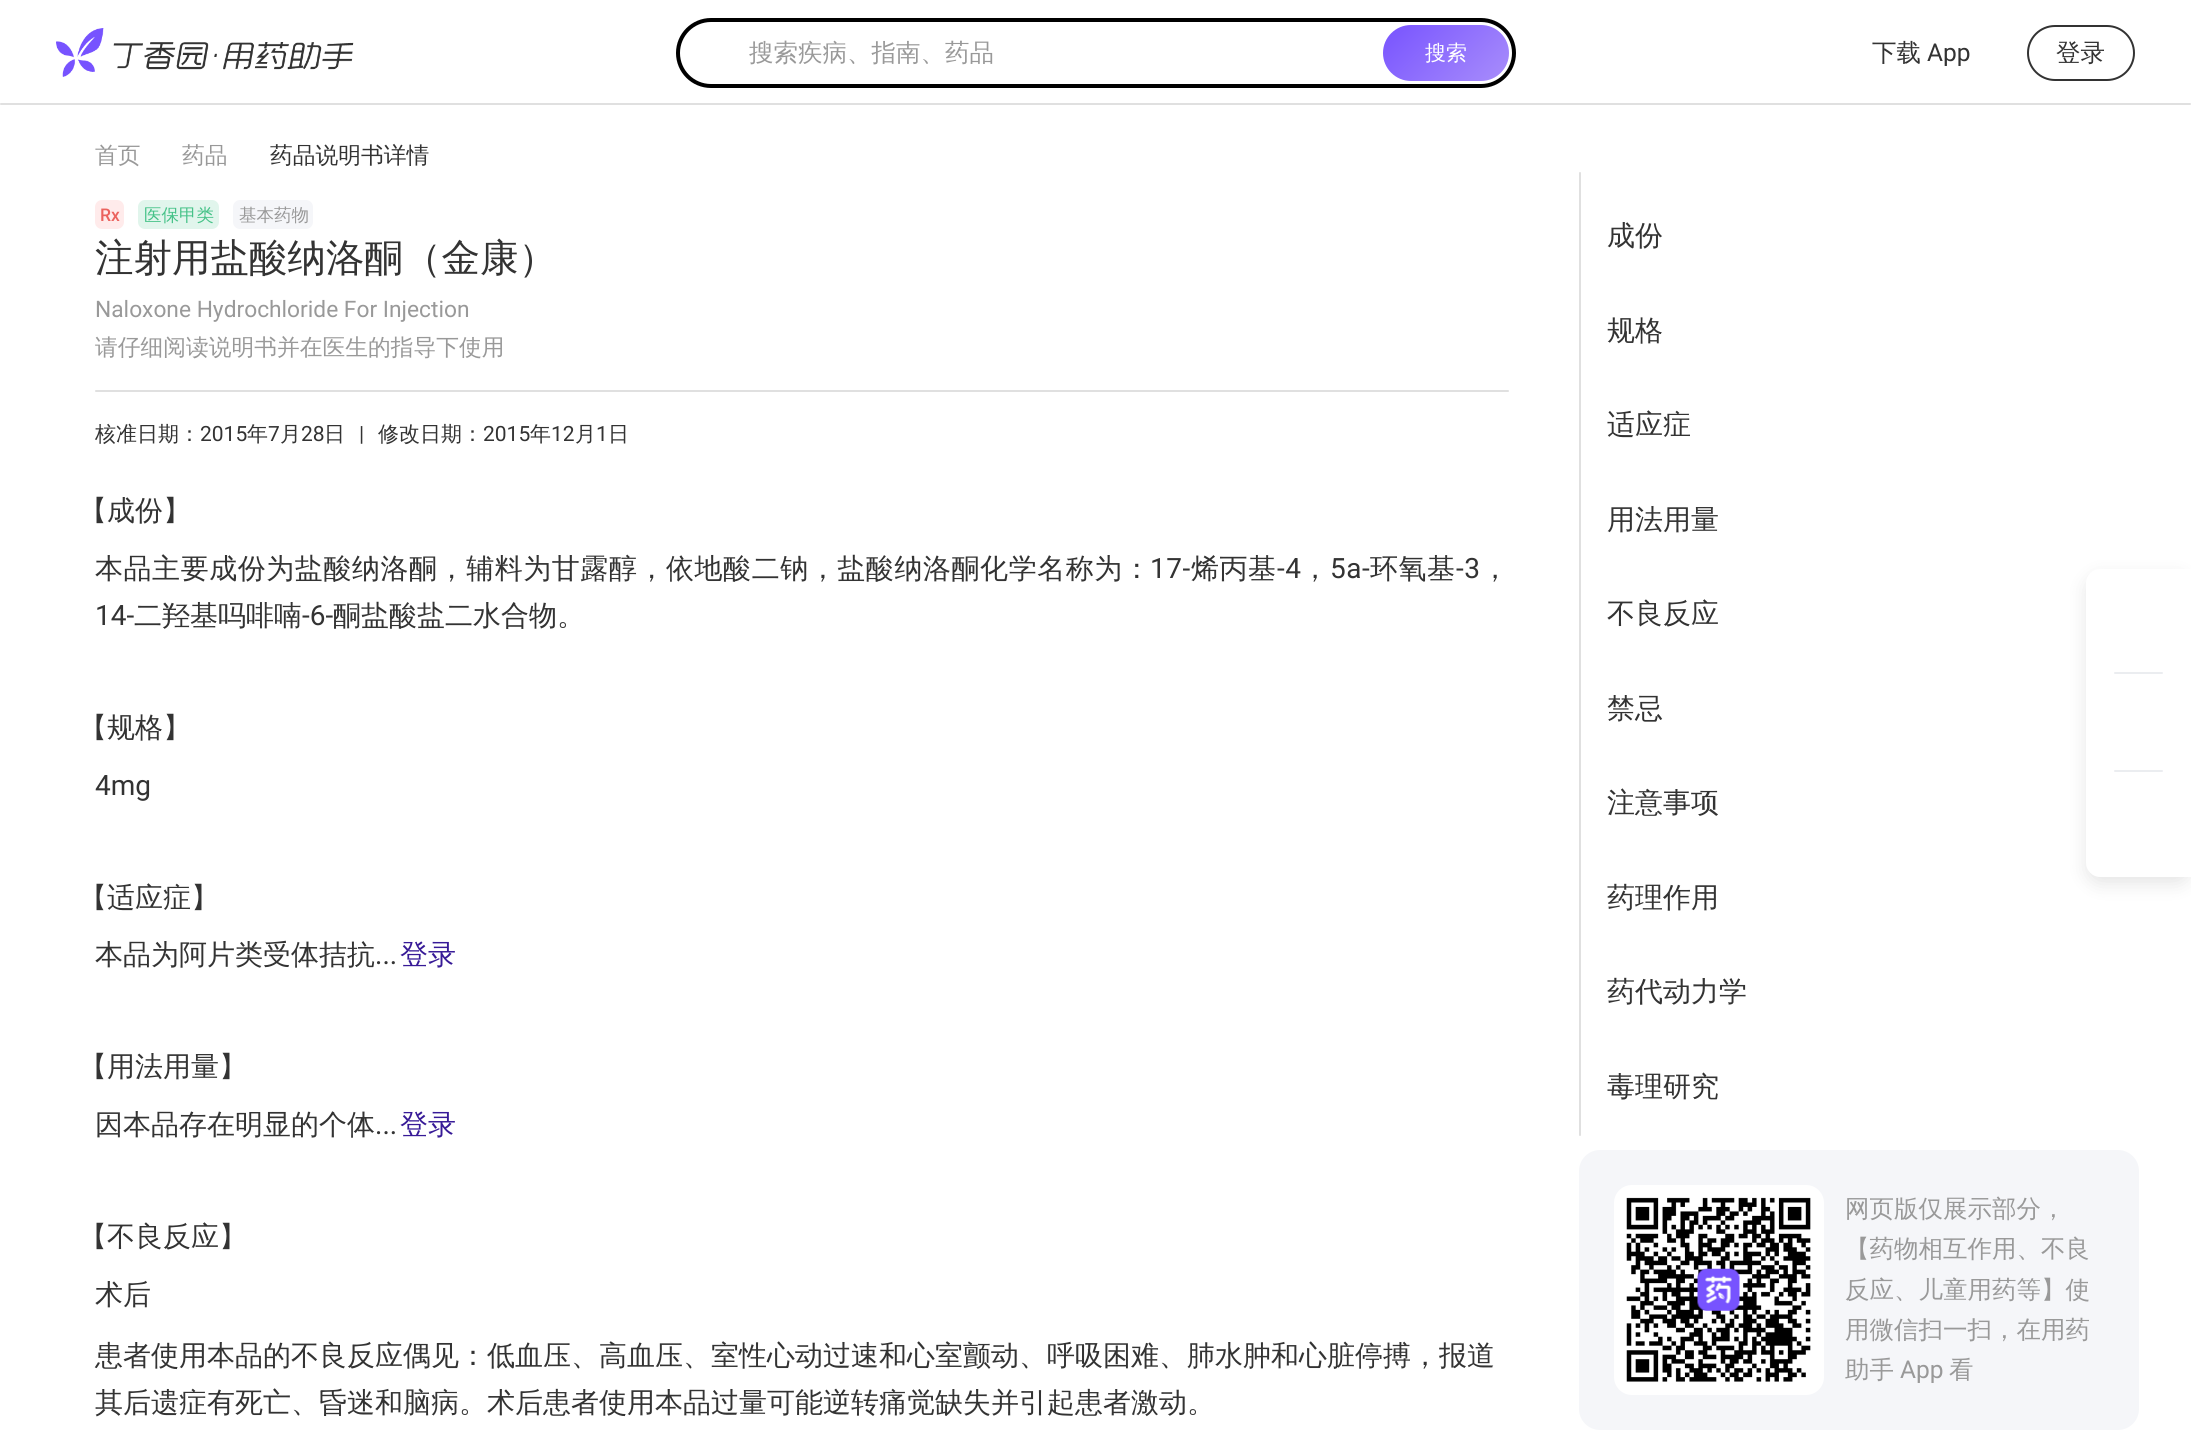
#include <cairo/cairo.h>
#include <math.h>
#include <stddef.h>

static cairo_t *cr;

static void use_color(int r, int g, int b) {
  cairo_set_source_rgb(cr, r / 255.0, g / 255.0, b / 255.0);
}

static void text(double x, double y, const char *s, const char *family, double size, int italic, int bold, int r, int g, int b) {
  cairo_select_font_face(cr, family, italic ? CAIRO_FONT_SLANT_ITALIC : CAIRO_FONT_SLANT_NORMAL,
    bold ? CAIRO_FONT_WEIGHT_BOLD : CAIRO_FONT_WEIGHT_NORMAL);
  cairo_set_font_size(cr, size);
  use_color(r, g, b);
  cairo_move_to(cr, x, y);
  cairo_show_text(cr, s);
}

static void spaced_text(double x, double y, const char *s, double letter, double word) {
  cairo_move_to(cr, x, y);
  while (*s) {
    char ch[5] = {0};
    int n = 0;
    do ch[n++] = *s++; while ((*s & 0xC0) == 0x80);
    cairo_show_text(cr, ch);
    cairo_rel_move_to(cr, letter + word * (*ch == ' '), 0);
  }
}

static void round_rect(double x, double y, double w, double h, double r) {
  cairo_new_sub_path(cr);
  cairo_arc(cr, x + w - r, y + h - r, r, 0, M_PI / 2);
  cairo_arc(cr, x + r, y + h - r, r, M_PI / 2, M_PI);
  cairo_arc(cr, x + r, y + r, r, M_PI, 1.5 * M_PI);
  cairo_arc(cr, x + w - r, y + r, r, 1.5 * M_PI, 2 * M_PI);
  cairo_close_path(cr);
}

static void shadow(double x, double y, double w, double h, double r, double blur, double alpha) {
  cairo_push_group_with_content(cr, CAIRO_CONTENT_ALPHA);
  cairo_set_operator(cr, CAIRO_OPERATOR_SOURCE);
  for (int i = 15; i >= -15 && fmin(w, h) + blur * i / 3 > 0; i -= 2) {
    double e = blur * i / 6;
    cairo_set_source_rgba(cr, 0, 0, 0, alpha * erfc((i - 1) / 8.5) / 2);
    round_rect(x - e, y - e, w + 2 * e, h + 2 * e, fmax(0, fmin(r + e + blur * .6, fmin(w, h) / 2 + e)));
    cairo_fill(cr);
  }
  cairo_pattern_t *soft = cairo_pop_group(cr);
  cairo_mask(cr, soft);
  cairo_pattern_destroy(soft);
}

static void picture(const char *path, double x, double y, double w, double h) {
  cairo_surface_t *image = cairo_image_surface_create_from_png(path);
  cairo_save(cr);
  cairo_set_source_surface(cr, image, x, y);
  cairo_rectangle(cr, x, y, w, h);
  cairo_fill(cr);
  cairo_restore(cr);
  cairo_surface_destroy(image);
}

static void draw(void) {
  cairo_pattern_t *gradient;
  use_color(255, 255, 255);
  cairo_paint(cr);
  picture("img_01.png", 56, 28, 298, 49);
  round_rect(678, 20, 836, 66, 33);
  use_color(0, 0, 0);
  cairo_set_line_width(cr, 4);
  cairo_stroke(cr);
  gradient = cairo_pattern_create_linear(1400, 7, 1491, 98);
  cairo_pattern_add_color_stop_rgba(gradient, 0, 0.467, 0.325, 1, 1);
  cairo_pattern_add_color_stop_rgba(gradient, 1, 0.659, 0.553, 0.984, 1);
  cairo_set_source(cr, gradient);
  cairo_pattern_destroy(gradient);
  round_rect(1383, 25, 126, 56, 28);
  cairo_fill(cr);
  round_rect(2028, 26, 106, 54, 27);
  use_color(51, 51, 51);
  cairo_set_line_width(cr, 2);
  cairo_stroke(cr);
  use_color(224, 224, 224);
  round_rect(0, 103, 2191, 2, 1);
  cairo_fill(cr);
  use_color(255, 235, 235);
  round_rect(95, 200, 29, 29, 7);
  cairo_fill(cr);
  use_color(225, 245, 236);
  round_rect(138, 200, 81, 29, 7);
  cairo_fill(cr);
  use_color(245, 246, 249);
  round_rect(233, 200, 80, 29, 7);
  cairo_fill(cr);
  use_color(224, 224, 224);
  round_rect(95, 390, 1414, 2, 1);
  cairo_fill(cr);
  round_rect(1579, 172, 2, 964, 1);
  cairo_fill(cr);
  use_color(245, 246, 249);
  round_rect(1579, 1150, 560, 280, 21);
  cairo_fill(cr);
  use_color(255, 255, 255);
  round_rect(1614, 1185, 210, 210, 18);
  cairo_fill(cr);
  picture("img_02.png", 1626, 1197, 185, 185);
  picture("img_03.png", 1697, 1268, 43, 43);
  use_color(0, 0, 0);
  shadow(2086, 576, 105, 308, 14, 9, 0.1);
  use_color(255, 255, 255);
  cairo_new_path(cr);
  cairo_move_to(cr, 2100, 569);
  cairo_line_to(cr, 2191, 569);
  cairo_line_to(cr, 2191, 877);
  cairo_line_to(cr, 2100, 877);
  cairo_curve_to(cr, 2092.5, 877, 2086, 870.5, 2086, 863);
  cairo_line_to(cr, 2086, 583);
  cairo_curve_to(cr, 2086, 575.5, 2092.5, 569, 2100, 569);
  cairo_close_path(cr);
  cairo_fill(cr);
  use_color(235, 237, 240);
  round_rect(2114, 672, 49, 2, 1);
  cairo_fill(cr);
  round_rect(2114, 770, 49, 2, 1);
  cairo_fill(cr);
  text(749, 61, "搜索疾病、指南、药品", "WenQuanYi Zen Hei Medium", 24.5, 0, 0, 153, 153, 153);
  text(1425, 60, "搜索", "WenQuanYi Zen Hei Medium", 21, 0, 0, 255, 255, 255);
  text(1872, 61, "下载", "WenQuanYi Zen Hei Medium", 24.5, 0, 0, 51, 51, 51);
  text(1927, 61, "App", "Roboto", 24.5, 0, 0, 51, 51, 51);
  text(2056, 61, "登录", "WenQuanYi Zen Hei Medium", 24.5, 0, 0, 51, 51, 51);
  text(95, 163, "首页", "WenQuanYi Zen Hei Medium", 22.75, 0, 0, 153, 153, 153);
  text(182, 163, "药品", "WenQuanYi Zen Hei Medium", 22.75, 0, 0, 153, 153, 153);
  text(270, 163, "药品说明书详情", "WenQuanYi Zen Hei Medium", 22.75, 0, 0, 51, 51, 51);
  text(100, 221, "Rx", "Roboto Medium", 17.5, 0, 0, 235, 99, 94);
  text(144, 221, "医保甲类", "WenQuanYi Zen Hei Medium", 17.5, 0, 0, 70, 194, 136);
  text(239, 221, "基本药物", "WenQuanYi Zen Hei Medium", 17.5, 0, 0, 153, 153, 153);
  text(95, 271, "注射用盐酸纳洛酮（金康）", "WenQuanYi Zen Hei Medium", 38.5, 0, 0, 51, 51, 51);
  text(95, 317, "Naloxone Hydrochloride For Injection", "Roboto", 22.75, 0, 0, 153, 153, 153);
  text(95, 355, "请仔细阅读说明书并在医生的指导下使用", "WenQuanYi Zen Hei Medium", 22.75, 0, 0, 153, 153, 153);
  text(95, 441, "核准日期：", "WenQuanYi Zen Hei Medium", 21, 0, 0, 51, 51, 51);
  text(200, 441, "2015", "Roboto", 21, 0, 0, 51, 51, 51);
  text(247, 441, "年", "WenQuanYi Zen Hei Medium", 21, 0, 0, 51, 51, 51);
  text(268, 441, "7", "Roboto", 21, 0, 0, 51, 51, 51);
  text(280, 441, "月", "WenQuanYi Zen Hei Medium", 21, 0, 0, 51, 51, 51);
  text(301, 441, "28", "Roboto", 21, 0, 0, 51, 51, 51);
  text(324, 441, "日", "WenQuanYi Zen Hei Medium", 21, 0, 0, 51, 51, 51);
  text(359, 441, "|", "Roboto", 21, 0, 0, 51, 51, 51);
  text(378, 441, "修改日期：", "WenQuanYi Zen Hei Medium", 21, 0, 0, 51, 51, 51);
  text(483, 441, "2015", "Roboto", 21, 0, 0, 51, 51, 51);
  text(530, 441, "年", "WenQuanYi Zen Hei Medium", 21, 0, 0, 51, 51, 51);
  text(551, 441, "12", "Roboto", 21, 0, 0, 51, 51, 51);
  text(575, 441, "月", "WenQuanYi Zen Hei Medium", 21, 0, 0, 51, 51, 51);
  text(596, 441, "1", "Roboto", 21, 0, 0, 51, 51, 51);
  text(608, 441, "日", "WenQuanYi Zen Hei Medium", 21, 0, 0, 51, 51, 51);
  text(79, 520, "【成份】", "WenQuanYi Zen Hei Medium", 28, 0, 0, 51, 51, 51);
  spaced_text(95, 578, "本品主要成份为盐酸纳洛酮，辅料为甘露醇，依地酸二钠，盐酸纳洛酮化学名称为：", 0.55, 0);
  cairo_select_font_face(cr, "Roboto", CAIRO_FONT_SLANT_NORMAL, CAIRO_FONT_WEIGHT_NORMAL);
  spaced_text(1150, 578, "17-", 0.55, 0);
  cairo_select_font_face(cr, "WenQuanYi Zen Hei Medium", CAIRO_FONT_SLANT_NORMAL, CAIRO_FONT_WEIGHT_NORMAL);
  spaced_text(1191, 578, "烯丙基", 0.55, 0);
  cairo_select_font_face(cr, "Roboto", CAIRO_FONT_SLANT_NORMAL, CAIRO_FONT_WEIGHT_NORMAL);
  spaced_text(1277, 578, "-4", 0.55, 0);
  cairo_select_font_face(cr, "WenQuanYi Zen Hei Medium", CAIRO_FONT_SLANT_NORMAL, CAIRO_FONT_WEIGHT_NORMAL);
  spaced_text(1301, 578, "，", 0.55, 0);
  cairo_select_font_face(cr, "Roboto", CAIRO_FONT_SLANT_NORMAL, CAIRO_FONT_WEIGHT_NORMAL);
  spaced_text(1330, 578, "5a-", 0.55, 0);
  cairo_select_font_face(cr, "WenQuanYi Zen Hei Medium", CAIRO_FONT_SLANT_NORMAL, CAIRO_FONT_WEIGHT_NORMAL);
  spaced_text(1370, 578, "环氧基", 0.55, 0);
  cairo_select_font_face(cr, "Roboto", CAIRO_FONT_SLANT_NORMAL, CAIRO_FONT_WEIGHT_NORMAL);
  spaced_text(1456, 578, "-3", 0.55, 0);
  cairo_select_font_face(cr, "WenQuanYi Zen Hei Medium", CAIRO_FONT_SLANT_NORMAL, CAIRO_FONT_WEIGHT_NORMAL);
  spaced_text(1481, 578, "，", 0.55, 0);
  text(95, 625, "14-", "Roboto", 28, 0, 0, 51, 51, 51);
  text(134, 625, "二羟基吗啡喃", "WenQuanYi Zen Hei Medium", 28, 0, 0, 51, 51, 51);
  text(302, 625, "-6-", "Roboto", 28, 0, 0, 51, 51, 51);
  text(333, 625, "酮盐酸盐二水合物。", "WenQuanYi Zen Hei Medium", 28, 0, 0, 51, 51, 51);
  text(79, 737, "【规格】", "WenQuanYi Zen Hei Medium", 28, 0, 0, 51, 51, 51);
  text(95, 795, "4mg", "Roboto", 28, 0, 0, 51, 51, 51);
  text(79, 907, "【适应症】", "WenQuanYi Zen Hei Medium", 28, 0, 0, 51, 51, 51);
  text(95, 964, "本品为阿片类受体拮抗", "WenQuanYi Zen Hei Medium", 28, 0, 0, 51, 51, 51);
  text(375, 964, "...", "Roboto", 28, 0, 0, 51, 51, 51);
  text(400, 964, "登录", "WenQuanYi Zen Hei Medium", 28, 0, 0, 55, 26, 151);
  text(79, 1076, "【用法用量】", "WenQuanYi Zen Hei Medium", 28, 0, 0, 51, 51, 51);
  text(95, 1134, "因本品存在明显的个体", "WenQuanYi Zen Hei Medium", 28, 0, 0, 51, 51, 51);
  text(375, 1134, "...", "Roboto", 28, 0, 0, 51, 51, 51);
  text(400, 1134, "登录", "WenQuanYi Zen Hei Medium", 28, 0, 0, 55, 26, 151);
  text(79, 1246, "【不良反应】", "WenQuanYi Zen Hei Medium", 28, 0, 0, 51, 51, 51);
  text(95, 1304, "术后", "WenQuanYi Zen Hei Medium", 28, 0, 0, 51, 51, 51);
  text(95, 1365, "患者使用本品的不良反应偶见：低血压、高血压、室性心动过速和心室颤动、呼吸困难、肺水肿和心脏停搏，报道", "WenQuanYi Zen Hei Medium", 28, 0, 0, 51, 51, 51);
  text(95, 1412, "其后遗症有死亡、昏迷和脑病。术后患者使用本品过量可能逆转痛觉缺失并引起患者激动。", "WenQuanYi Zen Hei Medium", 28, 0, 0, 51, 51, 51);
  text(1607, 245, "成份", "WenQuanYi Zen Hei Medium", 28, 0, 0, 51, 51, 51);
  text(1607, 340, "规格", "WenQuanYi Zen Hei Medium", 28, 0, 0, 51, 51, 51);
  text(1607, 434, "适应症", "WenQuanYi Zen Hei Medium", 28, 0, 0, 51, 51, 51);
  text(1607, 529, "用法用量", "WenQuanYi Zen Hei Medium", 28, 0, 0, 51, 51, 51);
  text(1607, 623, "不良反应", "WenQuanYi Zen Hei Medium", 28, 0, 0, 51, 51, 51);
  text(1607, 718, "禁忌", "WenQuanYi Zen Hei Medium", 28, 0, 0, 51, 51, 51);
  text(1607, 812, "注意事项", "WenQuanYi Zen Hei Medium", 28, 0, 0, 51, 51, 51);
  text(1607, 907, "药理作用", "WenQuanYi Zen Hei Medium", 28, 0, 0, 51, 51, 51);
  text(1607, 1001, "药代动力学", "WenQuanYi Zen Hei Medium", 28, 0, 0, 51, 51, 51);
  text(1607, 1096, "毒理研究", "WenQuanYi Zen Hei Medium", 28, 0, 0, 51, 51, 51);
  text(1845, 1217, "网页版仅展示部分，", "WenQuanYi Zen Hei Medium", 24.5, 0, 0, 153, 153, 153);
  text(1845, 1257, "【药物相互作用、不良", "WenQuanYi Zen Hei Medium", 24.5, 0, 0, 153, 153, 153);
  text(1845, 1298, "反应、儿童用药等】使", "WenQuanYi Zen Hei Medium", 24.5, 0, 0, 153, 153, 153);
  text(1845, 1338, "用微信扫一扫，在用药", "WenQuanYi Zen Hei Medium", 24.5, 0, 0, 153, 153, 153);
  text(1845, 1378, "助手", "WenQuanYi Zen Hei Medium", 24.5, 0, 0, 153, 153, 153);
  text(1900, 1378, "App", "Roboto", 24.5, 0, 0, 153, 153, 153);
  text(1949, 1378, "看", "WenQuanYi Zen Hei Medium", 24.5, 0, 0, 153, 153, 153);
}

int main(void) {
  cairo_surface_t *surface = cairo_image_surface_create(CAIRO_FORMAT_RGB24, 2191, 1443);
  cr = cairo_create(surface);
  cairo_font_options_t *options = cairo_font_options_create();
  cairo_font_options_set_hint_metrics(options, CAIRO_HINT_METRICS_OFF);
  cairo_font_options_set_hint_style(options, CAIRO_HINT_STYLE_NONE);
  cairo_set_font_options(cr, options);
  cairo_set_miter_limit(cr, 4);
  draw();
  cairo_surface_write_to_png(surface, "out.png");
  cairo_font_options_destroy(options);
  cairo_destroy(cr);
  cairo_surface_destroy(surface);
  return 0;
}
